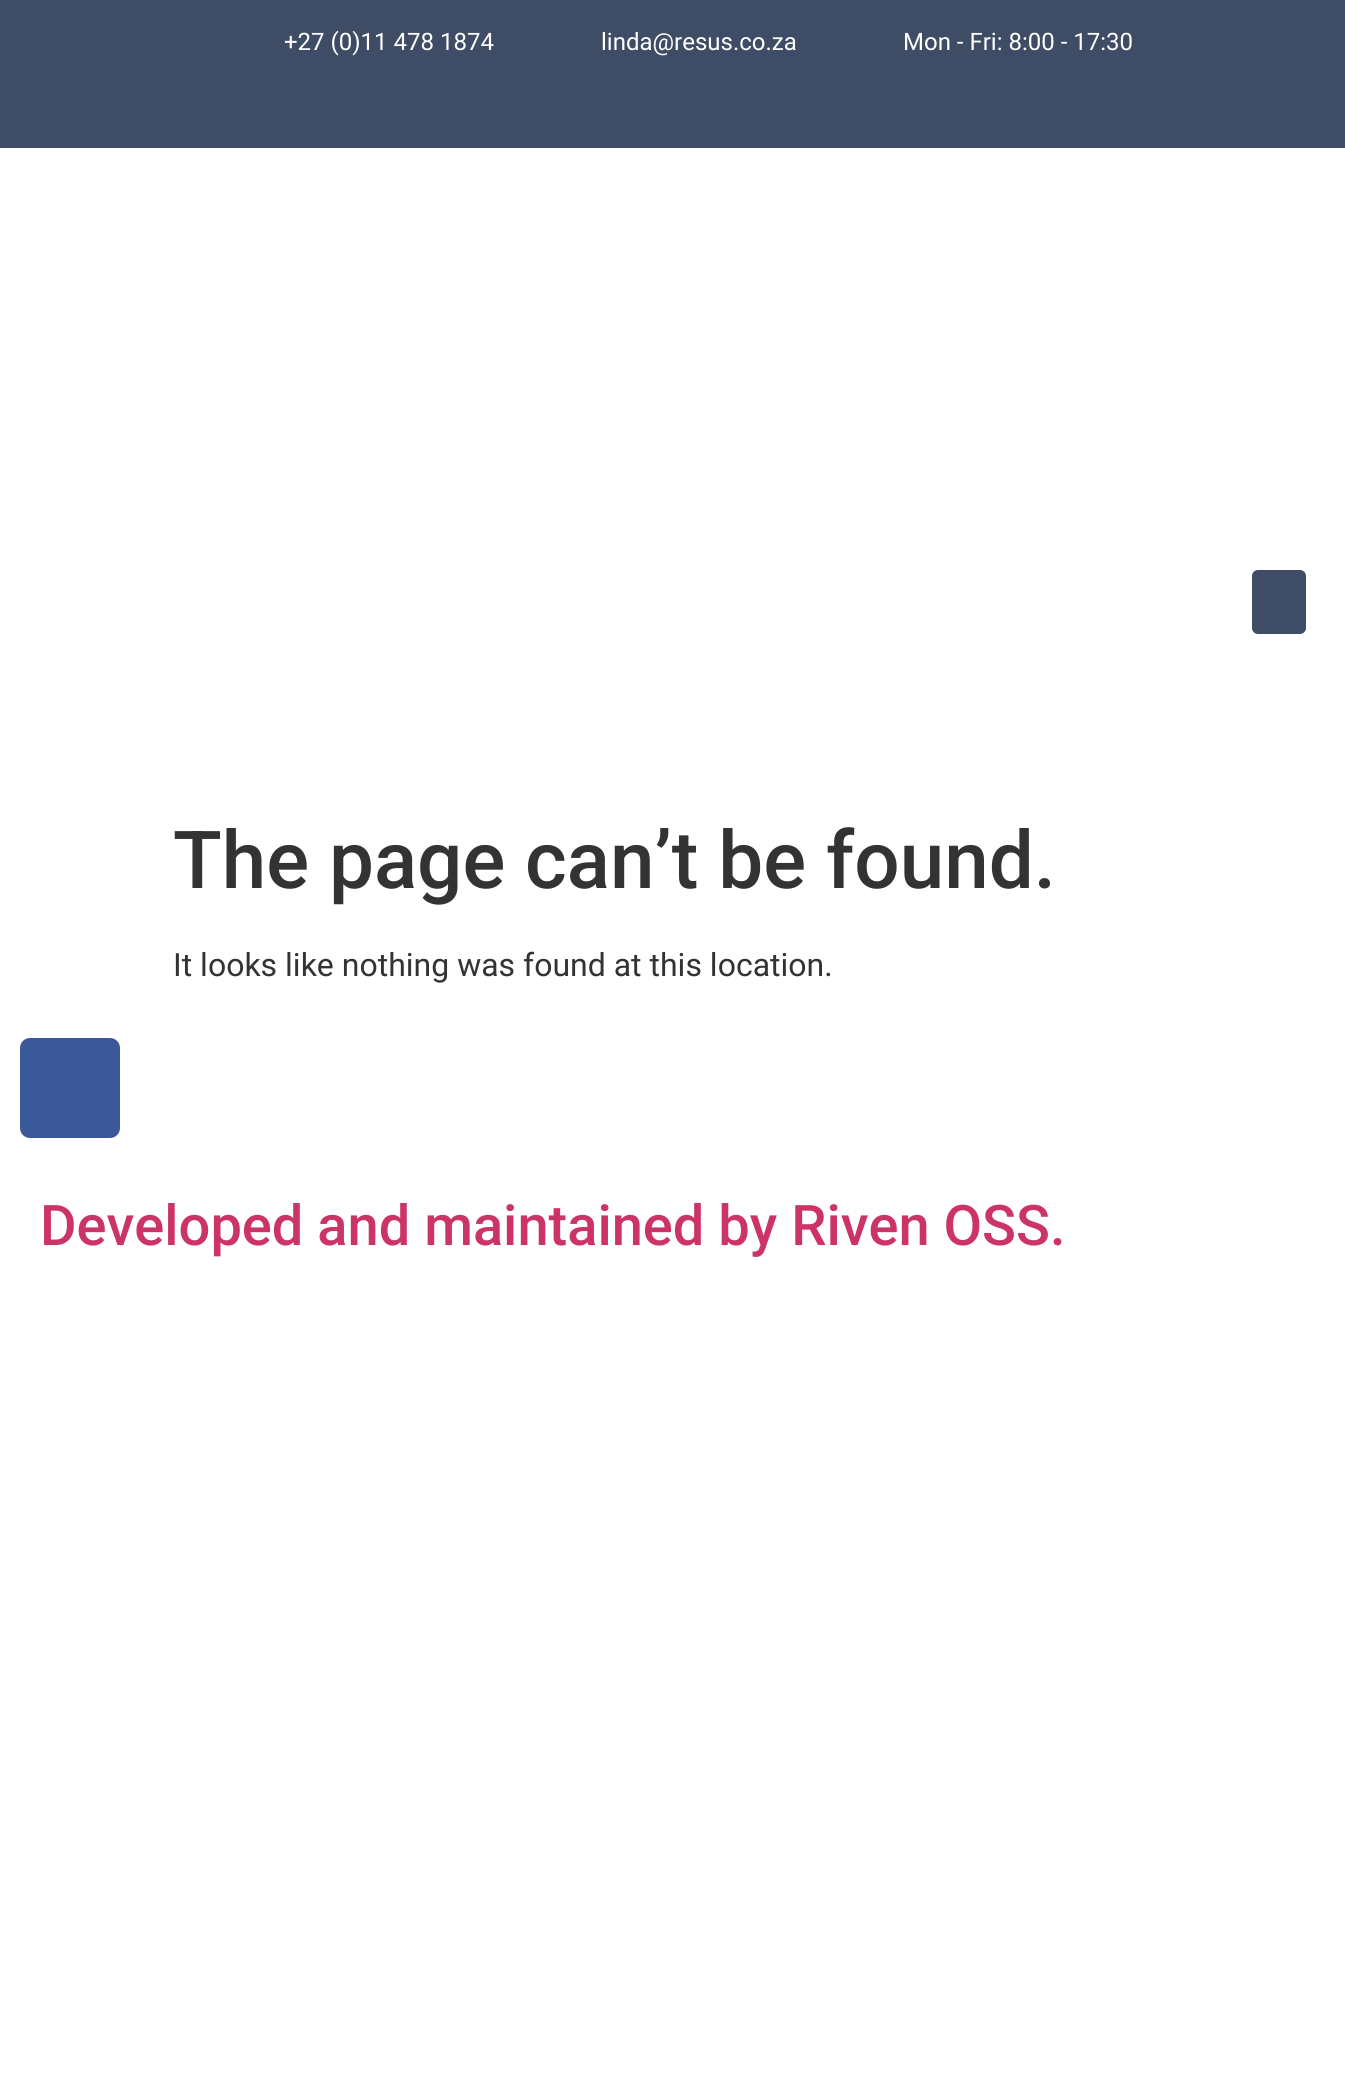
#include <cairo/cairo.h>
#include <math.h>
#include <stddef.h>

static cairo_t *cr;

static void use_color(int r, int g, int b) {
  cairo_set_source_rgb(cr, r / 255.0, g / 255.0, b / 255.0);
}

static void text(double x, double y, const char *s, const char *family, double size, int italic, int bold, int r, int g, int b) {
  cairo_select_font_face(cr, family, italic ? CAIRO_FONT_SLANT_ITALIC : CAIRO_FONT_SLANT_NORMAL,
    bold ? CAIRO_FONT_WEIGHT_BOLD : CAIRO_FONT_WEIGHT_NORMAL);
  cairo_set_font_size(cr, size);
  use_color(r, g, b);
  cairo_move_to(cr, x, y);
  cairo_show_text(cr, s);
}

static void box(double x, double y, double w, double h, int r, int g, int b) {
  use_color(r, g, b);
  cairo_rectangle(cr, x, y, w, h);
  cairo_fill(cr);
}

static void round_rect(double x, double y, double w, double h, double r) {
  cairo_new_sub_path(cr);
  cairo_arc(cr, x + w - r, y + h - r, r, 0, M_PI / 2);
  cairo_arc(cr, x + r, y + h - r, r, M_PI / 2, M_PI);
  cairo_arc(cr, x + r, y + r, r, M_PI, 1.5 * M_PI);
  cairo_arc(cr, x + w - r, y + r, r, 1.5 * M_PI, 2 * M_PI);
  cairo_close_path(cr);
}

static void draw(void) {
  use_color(255, 255, 255);
  cairo_paint(cr);
  box(0, 0, 1345, 148, 62, 76, 102);
  round_rect(1252, 570, 54, 64, 6);
  cairo_fill(cr);
  use_color(59, 89, 152);
  round_rect(20, 1038, 100, 100, 10);
  cairo_fill(cr);
  text(284, 50, "+27 (0)11 478 1874", "Roboto", 24, 0, 0, 255, 255, 255);
  text(601, 50, "linda@resus.co.za", "Roboto", 24, 0, 0, 255, 255, 255);
  text(903, 50, "Mon - Fri: 8:00 - 17:30", "Roboto", 24, 0, 0, 255, 255, 255);
  text(173, 888, "The page can’t be found.", "Roboto Medium", 80, 0, 0, 51, 51, 51);
  text(173, 976, "It looks like nothing was found at this location.", "Roboto", 32, 0, 0, 51, 51, 51);
  text(40, 1245, "Developed and maintained by Riven OSS.", "Roboto Medium", 56, 0, 0, 204, 51, 102);
}

int main(void) {
  cairo_surface_t *surface = cairo_image_surface_create(CAIRO_FORMAT_RGB24, 1345, 2090);
  cr = cairo_create(surface);
  cairo_font_options_t *options = cairo_font_options_create();
  cairo_font_options_set_hint_metrics(options, CAIRO_HINT_METRICS_OFF);
  cairo_font_options_set_hint_style(options, CAIRO_HINT_STYLE_NONE);
  cairo_set_font_options(cr, options);
  cairo_set_miter_limit(cr, 4);
  draw();
  cairo_surface_write_to_png(surface, "out.png");
  cairo_font_options_destroy(options);
  cairo_destroy(cr);
  cairo_surface_destroy(surface);
  return 0;
}
